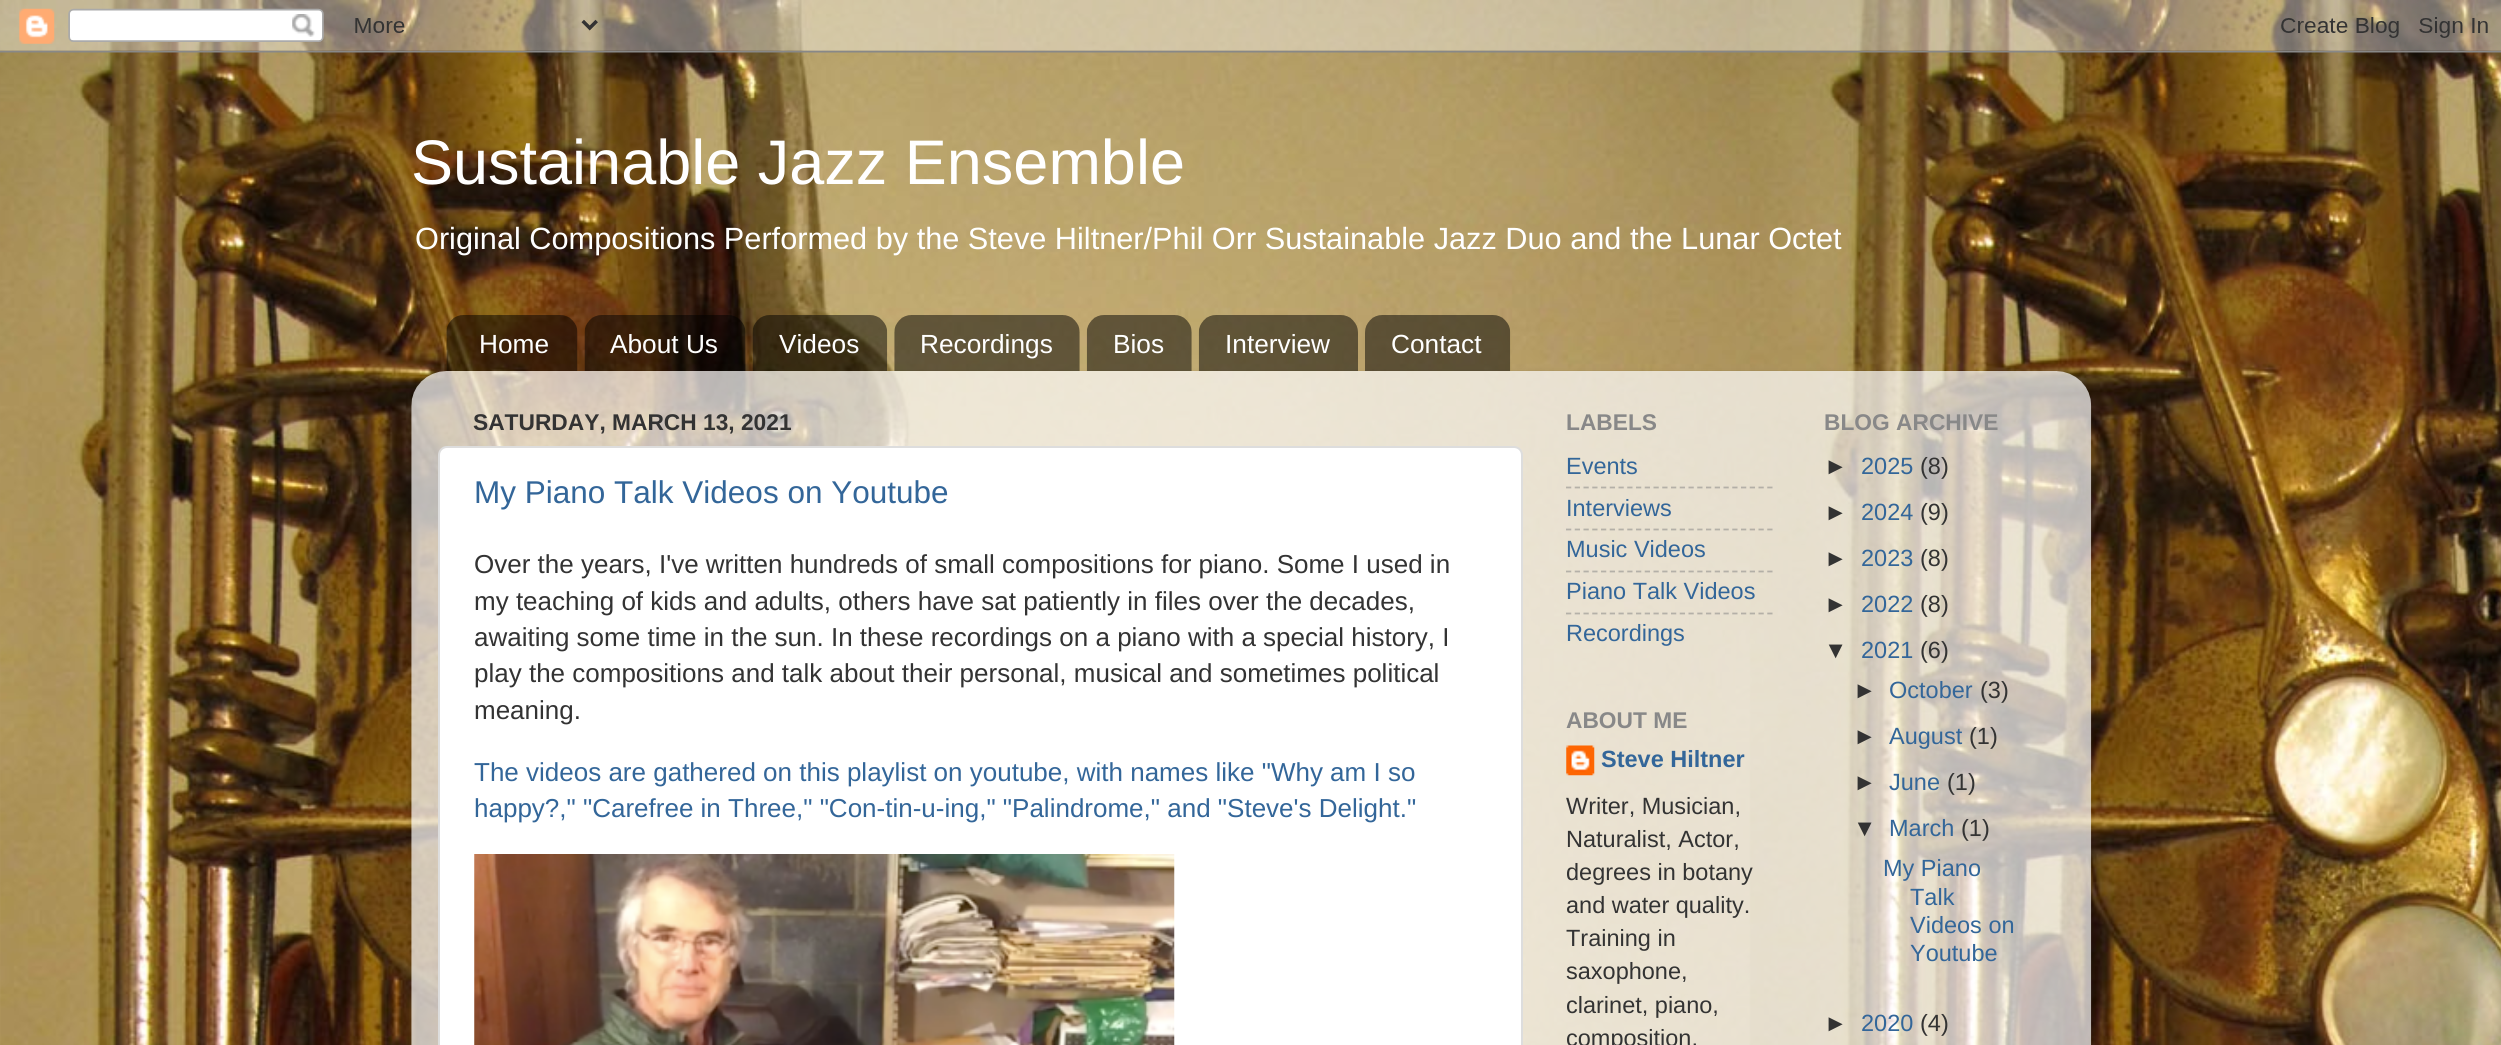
#include <cairo/cairo.h>
#include <math.h>
#include <stddef.h>

static cairo_t *cr;

static void use_color(int r, int g, int b) {
  cairo_set_source_rgb(cr, r / 255.0, g / 255.0, b / 255.0);
}

static void text(double x, double y, const char *s, const char *family, double size, int italic, int bold, int r, int g, int b) {
  cairo_select_font_face(cr, family, italic ? CAIRO_FONT_SLANT_ITALIC : CAIRO_FONT_SLANT_NORMAL,
    bold ? CAIRO_FONT_WEIGHT_BOLD : CAIRO_FONT_WEIGHT_NORMAL);
  cairo_set_font_size(cr, size);
  use_color(r, g, b);
  cairo_move_to(cr, x, y);
  cairo_show_text(cr, s);
}

static void round_rect(double x, double y, double w, double h, double r) {
  cairo_new_sub_path(cr);
  cairo_arc(cr, x + w - r, y + h - r, r, 0, M_PI / 2);
  cairo_arc(cr, x + r, y + h - r, r, M_PI / 2, M_PI);
  cairo_arc(cr, x + r, y + r, r, M_PI, 1.5 * M_PI);
  cairo_arc(cr, x + w - r, y + r, r, 1.5 * M_PI, 2 * M_PI);
  cairo_close_path(cr);
}

static void shadow(double x, double y, double w, double h, double r, double blur, double alpha) {
  cairo_push_group_with_content(cr, CAIRO_CONTENT_ALPHA);
  cairo_set_operator(cr, CAIRO_OPERATOR_SOURCE);
  for (int i = 15; i >= -15 && fmin(w, h) + blur * i / 3 > 0; i -= 2) {
    double e = blur * i / 6;
    cairo_set_source_rgba(cr, 0, 0, 0, alpha * erfc((i - 1) / 8.5) / 2);
    round_rect(x - e, y - e, w + 2 * e, h + 2 * e, fmax(0, fmin(r + e + blur * .6, fmin(w, h) / 2 + e)));
    cairo_fill(cr);
  }
  cairo_pattern_t *soft = cairo_pop_group(cr);
  cairo_mask(cr, soft);
  cairo_pattern_destroy(soft);
}

static void picture(const char *path, double x, double y, double w, double h) {
  cairo_surface_t *image = cairo_image_surface_create_from_png(path);
  cairo_save(cr);
  cairo_set_source_surface(cr, image, x, y);
  cairo_rectangle(cr, x, y, w, h);
  cairo_fill(cr);
  cairo_restore(cr);
  cairo_surface_destroy(image);
}

static void draw(void) {
  use_color(255, 255, 255);
  cairo_paint(cr);
  picture("img_01.png", 0, 0, 2501, 1045);
  picture("img_02.png", 0, 0, 2501, 53);
  picture("img_03.png", 446, 315, 132, 56);
  picture("img_04.png", 584, 315, 162, 56);
  picture("img_05.png", 752, 315, 136, 56);
  picture("img_06.png", 894, 315, 186, 56);
  picture("img_07.png", 1086, 315, 106, 56);
  picture("img_08.png", 1198, 315, 160, 56);
  picture("img_09.png", 1365, 315, 146, 56);
  cairo_save(cr);
  cairo_set_fill_rule(cr, CAIRO_FILL_RULE_EVEN_ODD);
  cairo_new_path(cr);
  cairo_move_to(cr, 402, 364);
  cairo_line_to(cr, 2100, 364);
  cairo_line_to(cr, 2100, 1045);
  cairo_line_to(cr, 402, 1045);
  cairo_close_path(cr);
  cairo_move_to(cr, 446, 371);
  cairo_line_to(cr, 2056, 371);
  cairo_curve_to(cr, 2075.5, 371, 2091, 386.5, 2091, 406);
  cairo_line_to(cr, 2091, 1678);
  cairo_line_to(cr, 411, 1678);
  cairo_line_to(cr, 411, 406);
  cairo_curve_to(cr, 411, 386.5, 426.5, 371, 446, 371);
  cairo_close_path(cr);
  cairo_clip(cr);
  use_color(0, 0, 0);
  shadow(411, 373, 1680, 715, 35, 2.5, 0.15);
  cairo_restore(cr);
  picture("img_10.png", 411, 371, 1681, 674);
  use_color(255, 255, 255);
  round_rect(439, 447, 1083, 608, 8);
  cairo_fill_preserve(cr);
  use_color(221, 221, 221);
  cairo_stroke(cr);
  picture("img_11.png", 474, 854, 701, 191);
  cairo_new_path(cr);
  cairo_move_to(cr, 1566, 487.5);
  cairo_line_to(cr, 1773, 487.5);
  cairo_set_source_rgba(cr, 0.502, 0.502, 0.502, 0.5);
  cairo_set_line_width(cr, 1.8);
  cairo_set_dash(cr, (double[]){5.25, 3.5}, 2, 0);
  cairo_stroke(cr);
  cairo_new_path(cr);
  cairo_move_to(cr, 1566, 529.5);
  cairo_line_to(cr, 1773, 529.5);
  cairo_stroke(cr);
  cairo_new_path(cr);
  cairo_move_to(cr, 1566, 571.5);
  cairo_line_to(cr, 1773, 571.5);
  cairo_stroke(cr);
  cairo_new_path(cr);
  cairo_move_to(cr, 1566, 613.5);
  cairo_line_to(cr, 1773, 613.5);
  cairo_stroke(cr);
  picture("img_12.png", 1566, 745, 29, 31);
  text(411, 184, "Sustainable Jazz Ensemble", "Liberation Sans", 63, 0, 0, 255, 255, 255);
  text(415, 249, "Original Compositions Performed by the Steve Hiltner/Phil Orr Sustainable Jazz Duo and the Lunar Octet", "Liberation Sans", 30.7, 0, 0, 255, 255, 255);
  text(479, 353, "Home", "Liberation Sans", 26.25, 0, 0, 255, 255, 255);
  text(610, 353, "About Us", "Liberation Sans", 26.25, 0, 0, 255, 255, 255);
  text(779, 353, "Videos", "Liberation Sans", 26.25, 0, 0, 255, 255, 255);
  text(920, 353, "Recordings", "Liberation Sans", 26.25, 0, 0, 255, 255, 255);
  text(1113, 353, "Bios", "Liberation Sans", 26.25, 0, 0, 255, 255, 255);
  text(1225, 353, "Interview", "Liberation Sans", 26.25, 0, 0, 255, 255, 255);
  text(1391, 353, "Contact", "Liberation Sans", 26.25, 0, 0, 255, 255, 255);
  text(473, 430, "SATURDAY, MARCH 13, 2021", "Liberation Sans", 22.75, 0, 1, 51, 51, 51);
  text(474, 503, "My Piano Talk Videos on Youtube", "Liberation Sans", 31.5, 0, 0, 51, 102, 153);
  text(474, 573, "Over the years, I've written hundreds of small compositions for piano. Some I used in", "Liberation Sans", 26, 0, 0, 51, 51, 51);
  text(474, 610, "my teaching of kids and adults, others have sat patiently in files over the decades,", "Liberation Sans", 26, 0, 0, 51, 51, 51);
  text(474, 646, "awaiting some time in the sun. In these recordings on a piano with a special history, I", "Liberation Sans", 26, 0, 0, 51, 51, 51);
  text(474, 682, "play the compositions and talk about their personal, musical and sometimes political", "Liberation Sans", 26, 0, 0, 51, 51, 51);
  text(474, 719, "meaning.", "Liberation Sans", 26, 0, 0, 51, 51, 51);
  text(474, 781, "The videos are gathered on this playlist on youtube, with names like \"Why am I so", "Liberation Sans", 26, 0, 0, 51, 102, 153);
  text(474, 817, "happy?,\" \"Carefree in Three,\" \"Con-tin-u-ing,\" \"Palindrome,\" and \"Steve's Delight.\"", "Liberation Sans", 26, 0, 0, 51, 102, 153);
  text(1566, 430, "LABELS", "Liberation Sans", 22.75, 0, 1, 136, 136, 136);
  text(1566, 474, "Events", "Liberation Sans", 23.5, 0, 0, 51, 102, 153);
  text(1566, 516, "Interviews", "Liberation Sans", 23.5, 0, 0, 51, 102, 153);
  text(1566, 557, "Music Videos", "Liberation Sans", 23.5, 0, 0, 51, 102, 153);
  text(1566, 599, "Piano Talk Videos", "Liberation Sans", 23.5, 0, 0, 51, 102, 153);
  text(1566, 641, "Recordings", "Liberation Sans", 23.5, 0, 0, 51, 102, 153);
  text(1566, 728, "ABOUT ME", "Liberation Sans", 22.75, 0, 1, 136, 136, 136);
  text(1601, 767, "Steve Hiltner", "Liberation Sans", 23.5, 0, 1, 51, 102, 153);
  text(1566, 814, "Writer, Musician,", "Liberation Sans", 23.5, 0, 0, 51, 51, 51);
  text(1566, 847, "Naturalist, Actor,", "Liberation Sans", 23.5, 0, 0, 51, 51, 51);
  text(1566, 880, "degrees in botany", "Liberation Sans", 23.5, 0, 0, 51, 51, 51);
  text(1566, 913, "and water quality.", "Liberation Sans", 23.5, 0, 0, 51, 51, 51);
  text(1566, 946, "Training in", "Liberation Sans", 23.5, 0, 0, 51, 51, 51);
  text(1566, 979, "saxophone,", "Liberation Sans", 23.5, 0, 0, 51, 51, 51);
  text(1566, 1013, "clarinet, piano,", "Liberation Sans", 23.5, 0, 0, 51, 51, 51);
  text(1566, 1046, "composition,", "Liberation Sans", 23.5, 0, 0, 51, 51, 51);
  text(1824, 430, "BLOG ARCHIVE", "Liberation Sans", 22.75, 0, 1, 136, 136, 136);
  text(1824, 474, "►", "Liberation Sans", 23.5, 0, 0, 51, 51, 51);
  text(1861, 474, "2025", "Liberation Sans", 23.5, 0, 0, 51, 102, 153);
  text(1920, 474, "(8)", "Liberation Sans", 23.5, 0, 0, 51, 51, 51);
  text(1824, 520, "►", "Liberation Sans", 23.5, 0, 0, 51, 51, 51);
  text(1861, 520, "2024", "Liberation Sans", 23.5, 0, 0, 51, 102, 153);
  text(1920, 520, "(9)", "Liberation Sans", 23.5, 0, 0, 51, 51, 51);
  text(1824, 566, "►", "Liberation Sans", 23.5, 0, 0, 51, 51, 51);
  text(1861, 566, "2023", "Liberation Sans", 23.5, 0, 0, 51, 102, 153);
  text(1920, 566, "(8)", "Liberation Sans", 23.5, 0, 0, 51, 51, 51);
  text(1824, 612, "►", "Liberation Sans", 23.5, 0, 0, 51, 51, 51);
  text(1861, 612, "2022", "Liberation Sans", 23.5, 0, 0, 51, 102, 153);
  text(1920, 612, "(8)", "Liberation Sans", 23.5, 0, 0, 51, 51, 51);
  text(1824, 658, "▼", "Liberation Sans", 23.5, 0, 0, 51, 51, 51);
  text(1861, 658, "2021", "Liberation Sans", 23.5, 0, 0, 51, 102, 153);
  text(1920, 658, "(6)", "Liberation Sans", 23.5, 0, 0, 51, 51, 51);
  text(1853, 698, "►", "Liberation Sans", 23.5, 0, 0, 51, 51, 51);
  text(1889, 698, "October", "Liberation Sans", 23.5, 0, 0, 51, 102, 153);
  text(1980, 698, "(3)", "Liberation Sans", 23.5, 0, 0, 51, 51, 51);
  text(1853, 744, "►", "Liberation Sans", 23.5, 0, 0, 51, 51, 51);
  text(1889, 744, "August", "Liberation Sans", 23.5, 0, 0, 51, 102, 153);
  text(1969, 744, "(1)", "Liberation Sans", 23.5, 0, 0, 51, 51, 51);
  text(1853, 790, "►", "Liberation Sans", 23.5, 0, 0, 51, 51, 51);
  text(1889, 790, "June", "Liberation Sans", 23.5, 0, 0, 51, 102, 153);
  text(1947, 790, "(1)", "Liberation Sans", 23.5, 0, 0, 51, 51, 51);
  text(1853, 836, "▼", "Liberation Sans", 23.5, 0, 0, 51, 51, 51);
  text(1889, 836, "March", "Liberation Sans", 23.5, 0, 0, 51, 102, 153);
  text(1961, 836, "(1)", "Liberation Sans", 23.5, 0, 0, 51, 51, 51);
  text(1883, 876, "My Piano", "Liberation Sans", 23.5, 0, 0, 51, 102, 153);
  text(1910, 905, "Talk", "Liberation Sans", 23.5, 0, 0, 51, 102, 153);
  text(1910, 933, "Videos on", "Liberation Sans", 23.5, 0, 0, 51, 102, 153);
  text(1910, 961, "Youtube", "Liberation Sans", 23.5, 0, 0, 51, 102, 153);
  text(1824, 1031, "►", "Liberation Sans", 23.5, 0, 0, 51, 51, 51);
  text(1861, 1031, "2020", "Liberation Sans", 23.5, 0, 0, 51, 102, 153);
  text(1920, 1031, "(4)", "Liberation Sans", 23.5, 0, 0, 51, 51, 51);
}

int main(void) {
  cairo_surface_t *surface = cairo_image_surface_create(CAIRO_FORMAT_RGB24, 2501, 1045);
  cr = cairo_create(surface);
  cairo_font_options_t *options = cairo_font_options_create();
  cairo_font_options_set_hint_metrics(options, CAIRO_HINT_METRICS_OFF);
  cairo_font_options_set_hint_style(options, CAIRO_HINT_STYLE_NONE);
  cairo_set_font_options(cr, options);
  cairo_set_miter_limit(cr, 4);
  draw();
  cairo_surface_write_to_png(surface, "out.png");
  cairo_font_options_destroy(options);
  cairo_destroy(cr);
  cairo_surface_destroy(surface);
  return 0;
}
